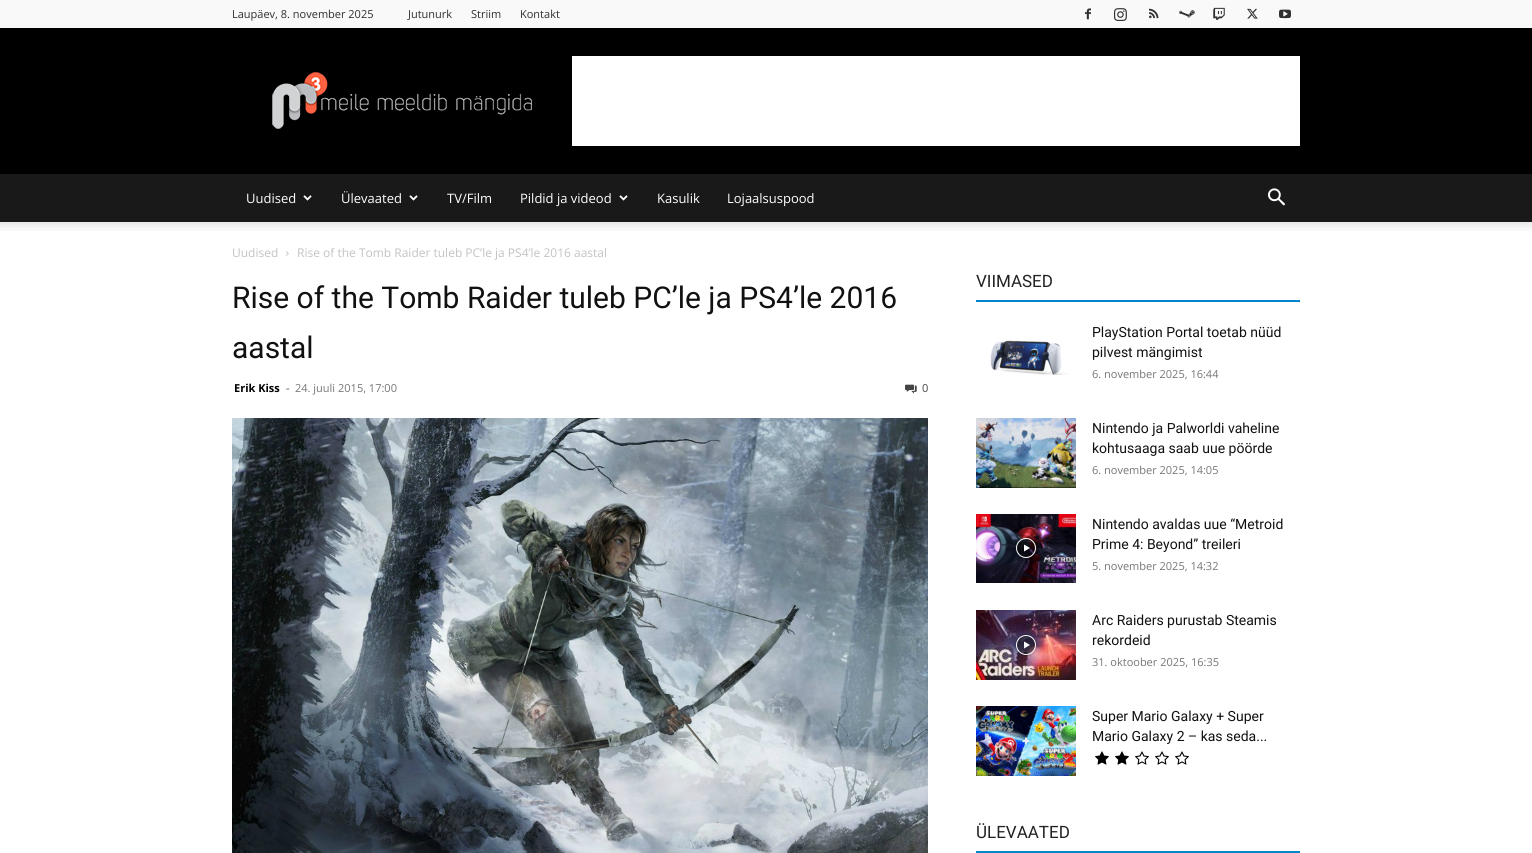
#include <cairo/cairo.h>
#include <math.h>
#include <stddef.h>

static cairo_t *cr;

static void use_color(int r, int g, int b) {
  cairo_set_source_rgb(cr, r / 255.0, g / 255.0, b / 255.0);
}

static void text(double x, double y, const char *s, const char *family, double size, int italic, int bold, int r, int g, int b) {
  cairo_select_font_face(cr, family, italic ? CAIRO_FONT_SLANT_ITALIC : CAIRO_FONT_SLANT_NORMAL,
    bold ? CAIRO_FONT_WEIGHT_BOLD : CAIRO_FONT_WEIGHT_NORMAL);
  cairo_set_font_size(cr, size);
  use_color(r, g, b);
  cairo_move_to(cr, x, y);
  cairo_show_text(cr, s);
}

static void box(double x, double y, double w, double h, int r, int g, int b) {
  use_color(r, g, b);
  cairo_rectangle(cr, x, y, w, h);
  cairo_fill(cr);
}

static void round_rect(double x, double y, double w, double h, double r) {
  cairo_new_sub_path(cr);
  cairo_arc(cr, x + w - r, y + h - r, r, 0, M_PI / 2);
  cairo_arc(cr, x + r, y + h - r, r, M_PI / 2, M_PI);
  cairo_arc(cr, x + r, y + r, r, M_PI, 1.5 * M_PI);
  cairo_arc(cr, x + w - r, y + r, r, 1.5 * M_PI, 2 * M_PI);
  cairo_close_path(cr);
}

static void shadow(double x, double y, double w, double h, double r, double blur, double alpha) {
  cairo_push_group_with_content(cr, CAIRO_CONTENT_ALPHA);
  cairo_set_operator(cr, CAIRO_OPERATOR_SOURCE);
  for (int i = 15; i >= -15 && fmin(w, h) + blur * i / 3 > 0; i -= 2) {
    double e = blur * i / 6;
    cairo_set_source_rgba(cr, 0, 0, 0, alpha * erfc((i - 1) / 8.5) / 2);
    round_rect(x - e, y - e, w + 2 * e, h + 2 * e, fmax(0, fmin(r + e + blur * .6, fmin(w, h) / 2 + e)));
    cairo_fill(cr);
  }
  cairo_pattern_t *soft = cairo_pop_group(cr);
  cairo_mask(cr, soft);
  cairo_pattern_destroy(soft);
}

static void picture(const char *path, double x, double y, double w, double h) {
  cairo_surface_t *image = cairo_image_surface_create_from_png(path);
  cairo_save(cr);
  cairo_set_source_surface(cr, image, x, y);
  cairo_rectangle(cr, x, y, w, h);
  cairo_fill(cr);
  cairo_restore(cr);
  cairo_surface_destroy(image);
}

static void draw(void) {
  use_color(255, 255, 255);
  cairo_paint(cr);
  box(0, 0, 1532, 28, 249, 249, 249);
  picture("img_01.png", 1085, 8, 6, 12);
  picture("img_02.png", 1114, 8, 13, 13);
  picture("img_03.png", 1149, 8, 10, 11);
  picture("img_04.png", 1179, 10, 16, 8);
  picture("img_05.png", 1213, 7, 12, 13);
  picture("img_06.png", 1247, 8, 11, 11);
  picture("img_07.png", 1279, 9, 12, 10);
  box(0, 28, 1532, 146, 0, 0, 0);
  picture("img_08.png", 272, 72, 260, 57);
  box(572, 56, 728, 90, 255, 255, 255);
  box(0, 174, 1532, 48, 25, 25, 25);
  picture("img_09.png", 303, 195, 9, 6);
  picture("img_09.png", 409, 195, 9, 6);
  picture("img_09.png", 619, 195, 9, 6);
  picture("img_10.png", 1268, 188, 17, 18);
  picture("img_11.png", 0, 222, 1532, 9);
  picture("img_12.png", 286, 251, 3, 5);
  picture("img_13.png", 905, 384, 12, 10);
  picture("img_14.png", 232, 418, 696, 435);
  box(976, 300, 324, 2, 0, 132, 204);
  picture("img_15.png", 990, 340, 78, 35);
  picture("img_16.png", 976, 418, 100, 70);
  picture("img_17.png", 976, 514, 100, 69);
  cairo_save(cr);
  cairo_set_fill_rule(cr, CAIRO_FILL_RULE_EVEN_ODD);
  cairo_new_path(cr);
  cairo_move_to(cr, 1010, 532);
  cairo_line_to(cr, 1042, 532);
  cairo_line_to(cr, 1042, 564);
  cairo_line_to(cr, 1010, 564);
  cairo_close_path(cr);
  cairo_move_to(cr, 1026, 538);
  cairo_curve_to(cr, 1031.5, 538, 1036, 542.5, 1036, 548);
  cairo_curve_to(cr, 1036, 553.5, 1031.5, 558, 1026, 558);
  cairo_curve_to(cr, 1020.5, 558, 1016, 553.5, 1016, 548);
  cairo_curve_to(cr, 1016, 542.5, 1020.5, 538, 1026, 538);
  cairo_close_path(cr);
  cairo_clip(cr);
  use_color(0, 0, 0);
  shadow(1016, 538, 20, 20, 10, 1.5, 0.4);
  cairo_restore(cr);
  cairo_set_source_rgba(cr, 0, 0, 0, 0.48);
  cairo_arc(cr, 1026, 548, 9.5, 0, 2 * M_PI);
  cairo_fill_preserve(cr);
  use_color(255, 255, 255);
  cairo_set_line_width(cr, 1);
  cairo_stroke(cr);
  cairo_new_path(cr);
  cairo_move_to(cr, 1024, 544.5);
  cairo_line_to(cr, 1024, 551.5);
  cairo_line_to(cr, 1030, 548);
  cairo_close_path(cr);
  cairo_fill(cr);
  picture("img_18.png", 976, 610, 100, 70);
  cairo_save(cr);
  cairo_set_fill_rule(cr, CAIRO_FILL_RULE_EVEN_ODD);
  cairo_new_path(cr);
  cairo_move_to(cr, 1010, 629);
  cairo_line_to(cr, 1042, 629);
  cairo_line_to(cr, 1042, 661);
  cairo_line_to(cr, 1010, 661);
  cairo_close_path(cr);
  cairo_move_to(cr, 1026, 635);
  cairo_curve_to(cr, 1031.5, 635, 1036, 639.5, 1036, 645);
  cairo_curve_to(cr, 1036, 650.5, 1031.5, 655, 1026, 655);
  cairo_curve_to(cr, 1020.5, 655, 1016, 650.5, 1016, 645);
  cairo_curve_to(cr, 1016, 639.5, 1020.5, 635, 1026, 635);
  cairo_close_path(cr);
  cairo_clip(cr);
  use_color(0, 0, 0);
  shadow(1016, 635, 20, 20, 10, 1.5, 0.4);
  cairo_restore(cr);
  cairo_set_source_rgba(cr, 0, 0, 0, 0.48);
  cairo_arc(cr, 1026, 645, 9.5, 0, 2 * M_PI);
  cairo_fill_preserve(cr);
  use_color(255, 255, 255);
  cairo_stroke(cr);
  cairo_new_path(cr);
  cairo_move_to(cr, 1024, 641.5);
  cairo_line_to(cr, 1024, 648.5);
  cairo_line_to(cr, 1030, 645);
  cairo_close_path(cr);
  cairo_fill(cr);
  picture("img_19.png", 976, 706, 100, 70);
  picture("img_20.png", 1095, 751, 14, 14);
  picture("img_20.png", 1115, 751, 14, 14);
  picture("img_21.png", 1135, 751, 14, 14);
  picture("img_21.png", 1155, 751, 14, 14);
  picture("img_21.png", 1175, 751, 14, 14);
  box(976, 851, 324, 2, 0, 132, 204);
  text(232, 18, "Laupäev, 8. november 2025", "Open Sans", 11, 0, 0, 47, 47, 47);
  text(408, 18, "Jutunurk", "Open Sans", 11, 0, 0, 47, 47, 47);
  text(471, 18, "Striim", "Open Sans", 11, 0, 0, 47, 47, 47);
  text(520, 18, "Kontakt", "Open Sans", 11, 0, 0, 47, 47, 47);
  text(246, 203, "Uudised", "Open Sans", 13, 0, 0, 255, 255, 255);
  text(341, 203, "Ülevaated", "Open Sans", 13, 0, 0, 255, 255, 255);
  text(447, 203, "TV/Film", "Open Sans", 13, 0, 0, 255, 255, 255);
  text(520, 203, "Pildid ja videod", "Open Sans", 13, 0, 0, 255, 255, 255);
  text(657, 203, "Kasulik", "Open Sans", 13, 0, 0, 255, 255, 255);
  text(727, 203, "Lojaalsuspood", "Open Sans", 13, 0, 0, 255, 255, 255);
  text(232, 257, "Uudised", "Open Sans", 12, 0, 0, 195, 195, 195);
  text(297, 257, "Rise of the Tomb Raider tuleb PC’le ja PS4’le 2016 aastal", "Open Sans", 12, 0, 0, 195, 195, 195);
  text(232, 308, "Rise of the Tomb Raider tuleb PC’le ja PS4’le 2016", "Roboto", 30, 0, 0, 17, 17, 17);
  text(232, 358, "aastal", "Roboto", 30, 0, 0, 17, 17, 17);
  text(234, 392, "Erik Kiss", "Open Sans", 11, 0, 1, 0, 0, 0);
  text(286, 392, "-", "Open Sans", 11, 0, 0, 68, 68, 68);
  text(295, 392, "24. juuli 2015, 17:00", "Open Sans", 11, 0, 0, 118, 118, 118);
  text(922, 392, "0", "Open Sans", 11, 0, 0, 68, 68, 68);
  text(976, 287, "VIIMASED", "Roboto", 17, 0, 0, 34, 34, 34);
  text(1092, 337, "PlayStation Portal toetab nüüd", "Roboto", 14, 0, 0, 17, 17, 17);
  text(1092, 357, "pilvest mängimist", "Roboto", 14, 0, 0, 17, 17, 17);
  text(1092, 378, "6. november 2025, 16:44", "Open Sans", 11, 0, 0, 118, 118, 118);
  text(1092, 433, "Nintendo ja Palworldi vaheline", "Roboto", 14, 0, 0, 17, 17, 17);
  text(1092, 453, "kohtusaaga saab uue pöörde", "Roboto", 14, 0, 0, 17, 17, 17);
  text(1092, 474, "6. november 2025, 14:05", "Open Sans", 11, 0, 0, 118, 118, 118);
  text(1092, 529, "Nintendo avaldas uue “Metroid", "Roboto", 14, 0, 0, 17, 17, 17);
  text(1092, 549, "Prime 4: Beyond” treileri", "Roboto", 14, 0, 0, 17, 17, 17);
  text(1092, 570, "5. november 2025, 14:32", "Open Sans", 11, 0, 0, 118, 118, 118);
  text(1092, 625, "Arc Raiders purustab Steamis", "Roboto", 14, 0, 0, 17, 17, 17);
  text(1092, 645, "rekordeid", "Roboto", 14, 0, 0, 17, 17, 17);
  text(1092, 666, "31. oktoober 2025, 16:35", "Open Sans", 11, 0, 0, 118, 118, 118);
  text(1092, 721, "Super Mario Galaxy + Super", "Roboto", 14, 0, 0, 17, 17, 17);
  text(1092, 741, "Mario Galaxy 2 – kas seda...", "Roboto", 14, 0, 0, 17, 17, 17);
  text(976, 838, "ÜLEVAATED", "Roboto", 17, 0, 0, 34, 34, 34);
}

int main(void) {
  cairo_surface_t *surface = cairo_image_surface_create(CAIRO_FORMAT_RGB24, 1532, 853);
  cr = cairo_create(surface);
  cairo_font_options_t *options = cairo_font_options_create();
  cairo_font_options_set_hint_metrics(options, CAIRO_HINT_METRICS_OFF);
  cairo_font_options_set_hint_style(options, CAIRO_HINT_STYLE_NONE);
  cairo_set_font_options(cr, options);
  cairo_set_miter_limit(cr, 4);
  draw();
  cairo_surface_write_to_png(surface, "out.png");
  cairo_font_options_destroy(options);
  cairo_destroy(cr);
  cairo_surface_destroy(surface);
  return 0;
}
